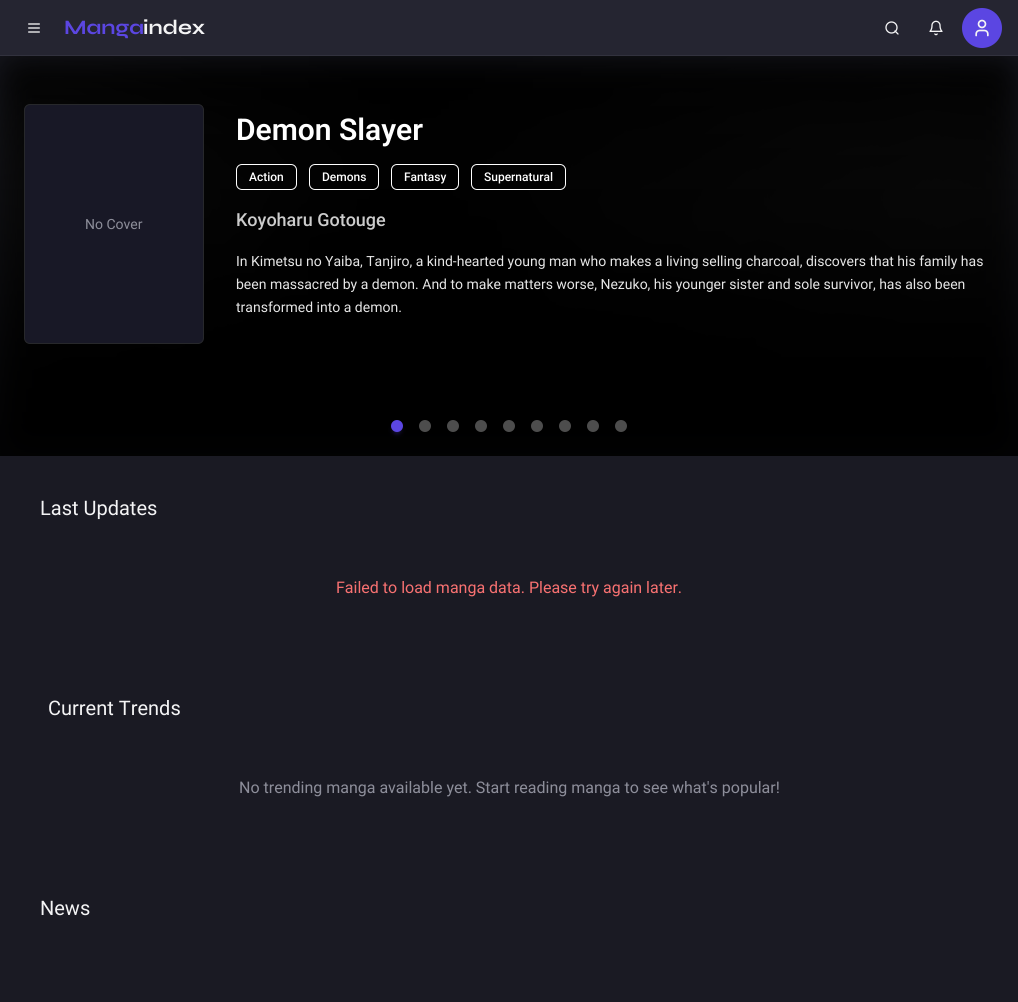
#include <cairo/cairo.h>
#include <math.h>
#include <stddef.h>

static cairo_t *cr;

static void use_color(int r, int g, int b) {
  cairo_set_source_rgb(cr, r / 255.0, g / 255.0, b / 255.0);
}

static void text(double x, double y, const char *s, const char *family, double size, int italic, int bold, int r, int g, int b) {
  cairo_select_font_face(cr, family, italic ? CAIRO_FONT_SLANT_ITALIC : CAIRO_FONT_SLANT_NORMAL,
    bold ? CAIRO_FONT_WEIGHT_BOLD : CAIRO_FONT_WEIGHT_NORMAL);
  cairo_set_font_size(cr, size);
  use_color(r, g, b);
  cairo_move_to(cr, x, y);
  cairo_show_text(cr, s);
}

static void box(double x, double y, double w, double h, int r, int g, int b) {
  use_color(r, g, b);
  cairo_rectangle(cr, x, y, w, h);
  cairo_fill(cr);
}

static void round_rect(double x, double y, double w, double h, double r) {
  cairo_new_sub_path(cr);
  cairo_arc(cr, x + w - r, y + h - r, r, 0, M_PI / 2);
  cairo_arc(cr, x + r, y + h - r, r, M_PI / 2, M_PI);
  cairo_arc(cr, x + r, y + r, r, M_PI, 1.5 * M_PI);
  cairo_arc(cr, x + w - r, y + r, r, 1.5 * M_PI, 2 * M_PI);
  cairo_close_path(cr);
}

static void shadow(double x, double y, double w, double h, double r, double blur, double alpha) {
  cairo_push_group_with_content(cr, CAIRO_CONTENT_ALPHA);
  cairo_set_operator(cr, CAIRO_OPERATOR_SOURCE);
  for (int i = 15; i >= -15 && fmin(w, h) + blur * i / 3 > 0; i -= 2) {
    double e = blur * i / 6;
    cairo_set_source_rgba(cr, 0, 0, 0, alpha * erfc((i - 1) / 8.5) / 2);
    round_rect(x - e, y - e, w + 2 * e, h + 2 * e, fmax(0, fmin(r + e + blur * .6, fmin(w, h) / 2 + e)));
    cairo_fill(cr);
  }
  cairo_pattern_t *soft = cairo_pop_group(cr);
  cairo_mask(cr, soft);
  cairo_pattern_destroy(soft);
}

static void picture(const char *path, double x, double y, double w, double h) {
  cairo_surface_t *image = cairo_image_surface_create_from_png(path);
  cairo_save(cr);
  cairo_set_source_surface(cr, image, x, y);
  cairo_rectangle(cr, x, y, w, h);
  cairo_fill(cr);
  cairo_restore(cr);
  cairo_surface_destroy(image);
}

static void draw(void) {
  cairo_pattern_t *gradient;
  use_color(26, 26, 35);
  cairo_paint(cr);
  box(0, 0, 1018, 55, 37, 37, 49);
  box(0, 55, 1018, 1, 50, 50, 62);
  picture("img_01.png", 28, 23, 12, 10);
  cairo_arc(cr, 891.5, 27.5, 5.5, 0, 2 * M_PI);
  use_color(244, 244, 245);
  cairo_set_line_width(cr, 1.3);
  cairo_stroke(cr);
  cairo_new_path(cr);
  cairo_move_to(cr, 898, 34);
  cairo_line_to(cr, 895, 31);
  cairo_set_line_cap(cr, CAIRO_LINE_CAP_ROUND);
  cairo_set_line_join(cr, CAIRO_LINE_JOIN_ROUND);
  cairo_stroke(cr);
  picture("img_02.png", 929, 20, 14, 16);
  use_color(91, 70, 226);
  cairo_arc(cr, 982, 28, 20, 0, 2 * M_PI);
  cairo_fill(cr);
  picture("img_03.png", 975, 19, 14, 18);
  box(0, 56, 1018, 400, 33, 34, 45);
  picture("img_04.png", 0, 56, 1018, 400);
  gradient = cairo_pattern_create_linear(509, 56, 509, 456);
  cairo_pattern_add_color_stop_rgba(gradient, 0, 0, 0, 0, 0.3);
  cairo_pattern_add_color_stop_rgba(gradient, 0.5, 0, 0, 0, 0.6);
  cairo_pattern_add_color_stop_rgba(gradient, 1, 0, 0, 0, 0.9);
  cairo_set_source(cr, gradient);
  cairo_pattern_destroy(gradient);
  cairo_rectangle(cr, 0, 56, 1018, 400);
  cairo_fill(cr);
  use_color(24, 24, 38);
  round_rect(24.5, 104.5, 179, 239, 5.5);
  cairo_fill_preserve(cr);
  use_color(39, 40, 43);
  cairo_set_line_width(cr, 1);
  cairo_set_line_cap(cr, CAIRO_LINE_CAP_BUTT);
  cairo_set_line_join(cr, CAIRO_LINE_JOIN_MITER);
  cairo_stroke(cr);
  round_rect(236.5, 164.5, 60, 25, 5.5);
  use_color(255, 255, 255);
  cairo_stroke(cr);
  round_rect(309.5, 164.5, 69, 25, 5.5);
  cairo_stroke(cr);
  round_rect(391.5, 164.5, 67, 25, 5.5);
  cairo_stroke(cr);
  round_rect(471.5, 164.5, 94, 25, 5.5);
  cairo_stroke(cr);
  use_color(91, 70, 226);
  shadow(395, 428, 4, 4, 2, 3, 0.5);
  use_color(91, 70, 226);
  cairo_arc(cr, 397, 426, 6, 0, 2 * M_PI);
  cairo_fill(cr);
  use_color(77, 77, 77);
  cairo_arc(cr, 425, 426, 6, 0, 2 * M_PI);
  cairo_fill(cr);
  cairo_arc(cr, 453, 426, 6, 0, 2 * M_PI);
  cairo_fill(cr);
  cairo_arc(cr, 481, 426, 6, 0, 2 * M_PI);
  cairo_fill(cr);
  cairo_arc(cr, 509, 426, 6, 0, 2 * M_PI);
  cairo_fill(cr);
  cairo_arc(cr, 537, 426, 6, 0, 2 * M_PI);
  cairo_fill(cr);
  cairo_arc(cr, 565, 426, 6, 0, 2 * M_PI);
  cairo_fill(cr);
  cairo_arc(cr, 593, 426, 6, 0, 2 * M_PI);
  cairo_fill(cr);
  cairo_arc(cr, 621, 426, 6, 0, 2 * M_PI);
  cairo_fill(cr);
  text(64, 34, "Manga", "Syne", 20.5, 0, 1, 91, 70, 226);
  text(143, 34, "index", "Syne", 20.5, 0, 1, 244, 244, 245);
  text(85, 229, "No Cover", "Roboto", 14, 0, 0, 141, 142, 154);
  text(236, 140, "Demon Slayer", "Roboto SemiBold", 30, 0, 0, 255, 255, 255);
  text(249, 181, "Action", "Roboto Medium", 12, 0, 0, 255, 255, 255);
  text(322, 181, "Demons", "Roboto Medium", 12, 0, 0, 255, 255, 255);
  text(404, 181, "Fantasy", "Roboto Medium", 12, 0, 0, 255, 255, 255);
  text(484, 181, "Supernatural", "Roboto Medium", 12, 0, 0, 255, 255, 255);
  text(236, 226, "Koyoharu Gotouge", "Roboto Medium", 18, 0, 0, 204, 204, 204);
  text(236, 266, "In Kimetsu no Yaiba, Tanjiro, a kind-hearted young man who makes a living selling charcoal, discovers that his family has", "Roboto", 14, 0, 0, 230, 230, 230);
  text(236, 289, "been massacred by a demon. And to make matters worse, Nezuko, his younger sister and sole survivor, has also been", "Roboto", 14, 0, 0, 230, 230, 230);
  text(236, 312, "transformed into a demon.", "Roboto", 14, 0, 0, 230, 230, 230);
  text(40, 515, "Last Updates", "Roboto", 20, 0, 0, 244, 244, 245);
  text(336, 593, "Failed to load manga data. Please try again later.", "Roboto", 16, 0, 0, 248, 113, 113);
  text(48, 715, "Current Trends", "Roboto", 20, 0, 0, 244, 244, 245);
  text(239, 793, "No trending manga available yet. Start reading manga to see what's popular!", "Roboto", 16, 0, 0, 141, 142, 154);
  text(40, 915, "News", "Roboto", 20, 0, 0, 244, 244, 245);
}

int main(void) {
  cairo_surface_t *surface = cairo_image_surface_create(CAIRO_FORMAT_RGB24, 1018, 1002);
  cr = cairo_create(surface);
  cairo_font_options_t *options = cairo_font_options_create();
  cairo_font_options_set_hint_metrics(options, CAIRO_HINT_METRICS_OFF);
  cairo_font_options_set_hint_style(options, CAIRO_HINT_STYLE_NONE);
  cairo_set_font_options(cr, options);
  cairo_set_miter_limit(cr, 4);
  draw();
  cairo_surface_write_to_png(surface, "out.png");
  cairo_font_options_destroy(options);
  cairo_destroy(cr);
  cairo_surface_destroy(surface);
  return 0;
}
